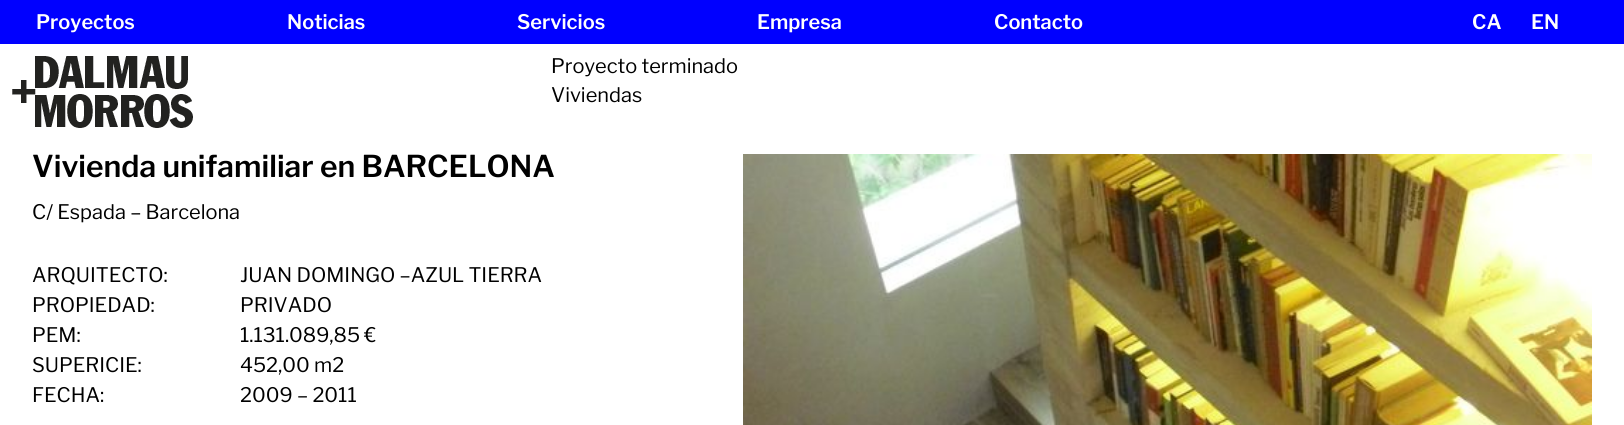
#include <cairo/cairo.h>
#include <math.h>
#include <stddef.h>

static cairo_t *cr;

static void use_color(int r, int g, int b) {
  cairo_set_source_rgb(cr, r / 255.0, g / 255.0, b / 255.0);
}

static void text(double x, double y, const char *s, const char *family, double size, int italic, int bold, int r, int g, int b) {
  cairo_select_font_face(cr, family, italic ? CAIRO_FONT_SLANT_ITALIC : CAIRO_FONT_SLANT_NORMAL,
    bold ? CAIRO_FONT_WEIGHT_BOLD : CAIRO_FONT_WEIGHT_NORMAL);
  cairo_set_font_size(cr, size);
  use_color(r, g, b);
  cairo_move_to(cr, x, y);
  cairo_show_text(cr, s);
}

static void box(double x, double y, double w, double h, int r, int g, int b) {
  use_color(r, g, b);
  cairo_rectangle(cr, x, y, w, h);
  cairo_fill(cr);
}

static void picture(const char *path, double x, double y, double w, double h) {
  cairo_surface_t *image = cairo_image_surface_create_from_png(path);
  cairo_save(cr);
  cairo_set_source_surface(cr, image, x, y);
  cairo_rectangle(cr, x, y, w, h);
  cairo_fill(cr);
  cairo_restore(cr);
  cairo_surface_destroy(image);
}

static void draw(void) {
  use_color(255, 255, 255);
  cairo_paint(cr);
  box(0, 0, 1624, 44, 0, 0, 255);
  picture("img_01.png", 12, 56, 181, 72);
  picture("img_02.png", 743, 154, 849, 271);
  text(36, 29, "Proyectos", "Libre Franklin SemiBold", 20, 0, 0, 255, 255, 255);
  text(287, 29, "Noticias", "Libre Franklin SemiBold", 20, 0, 0, 255, 255, 255);
  text(517, 29, "Servicios", "Libre Franklin SemiBold", 20, 0, 0, 255, 255, 255);
  text(757, 29, "Empresa", "Libre Franklin SemiBold", 20, 0, 0, 255, 255, 255);
  text(994, 29, "Contacto", "Libre Franklin SemiBold", 20, 0, 0, 255, 255, 255);
  text(1472, 29, "CA", "Libre Franklin SemiBold", 20, 0, 0, 255, 255, 255);
  text(1531, 29, "EN", "Libre Franklin SemiBold", 20, 0, 0, 255, 255, 255);
  text(551, 73, "Proyecto terminado", "Libre Franklin", 20, 0, 0, 0, 0, 0);
  text(551, 102, "Viviendas", "Libre Franklin", 20, 0, 0, 0, 0, 0);
  text(32, 177, "Vivienda unifamiliar en BARCELONA", "Libre Franklin SemiBold", 30, 0, 0, 0, 0, 0);
  text(32, 219, "C/ Espada – Barcelona", "Libre Franklin", 20, 0, 0, 0, 0, 0);
  text(32, 282, "ARQUITECTO:", "Libre Franklin", 20, 0, 0, 0, 0, 0);
  text(240, 282, "JUAN DOMINGO –AZUL TIERRA", "Libre Franklin", 20, 0, 0, 0, 0, 0);
  text(32, 312, "PROPIEDAD:", "Libre Franklin", 20, 0, 0, 0, 0, 0);
  text(240, 312, "PRIVADO", "Libre Franklin", 20, 0, 0, 0, 0, 0);
  text(32, 342, "PEM:", "Libre Franklin", 20, 0, 0, 0, 0, 0);
  text(240, 342, "1.131.089,85 €", "Libre Franklin", 20, 0, 0, 0, 0, 0);
  text(32, 372, "SUPERICIE:", "Libre Franklin", 20, 0, 0, 0, 0, 0);
  text(240, 372, "452,00 m2", "Libre Franklin", 20, 0, 0, 0, 0, 0);
  text(32, 402, "FECHA:", "Libre Franklin", 20, 0, 0, 0, 0, 0);
  text(240, 402, "2009 – 2011", "Libre Franklin", 20, 0, 0, 0, 0, 0);
}

int main(void) {
  cairo_surface_t *surface = cairo_image_surface_create(CAIRO_FORMAT_RGB24, 1624, 425);
  cr = cairo_create(surface);
  cairo_font_options_t *options = cairo_font_options_create();
  cairo_font_options_set_hint_metrics(options, CAIRO_HINT_METRICS_OFF);
  cairo_font_options_set_hint_style(options, CAIRO_HINT_STYLE_NONE);
  cairo_set_font_options(cr, options);
  cairo_set_miter_limit(cr, 4);
  draw();
  cairo_surface_write_to_png(surface, "out.png");
  cairo_font_options_destroy(options);
  cairo_destroy(cr);
  cairo_surface_destroy(surface);
  return 0;
}
